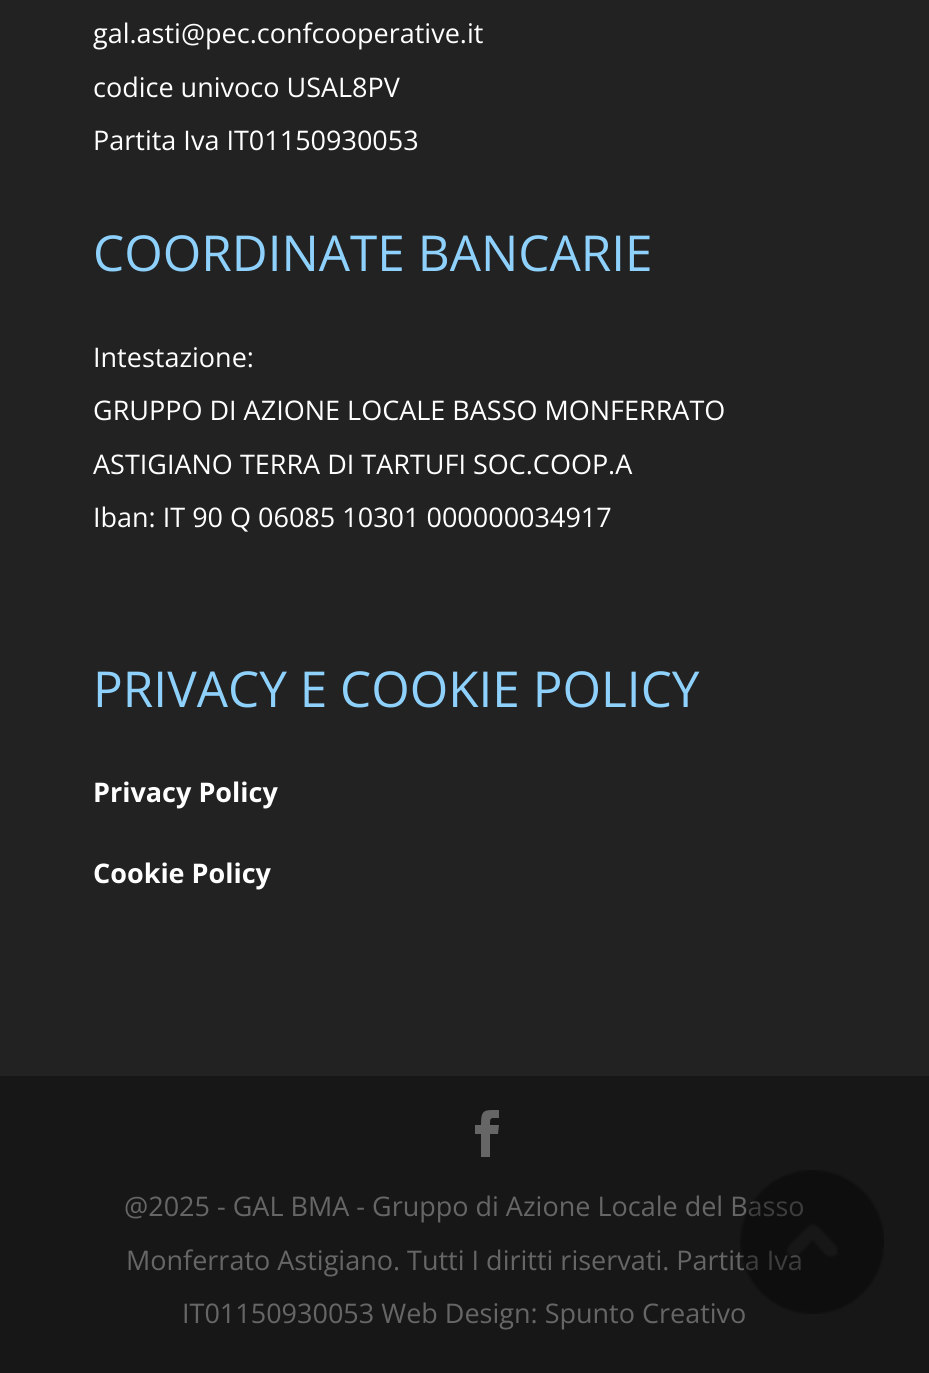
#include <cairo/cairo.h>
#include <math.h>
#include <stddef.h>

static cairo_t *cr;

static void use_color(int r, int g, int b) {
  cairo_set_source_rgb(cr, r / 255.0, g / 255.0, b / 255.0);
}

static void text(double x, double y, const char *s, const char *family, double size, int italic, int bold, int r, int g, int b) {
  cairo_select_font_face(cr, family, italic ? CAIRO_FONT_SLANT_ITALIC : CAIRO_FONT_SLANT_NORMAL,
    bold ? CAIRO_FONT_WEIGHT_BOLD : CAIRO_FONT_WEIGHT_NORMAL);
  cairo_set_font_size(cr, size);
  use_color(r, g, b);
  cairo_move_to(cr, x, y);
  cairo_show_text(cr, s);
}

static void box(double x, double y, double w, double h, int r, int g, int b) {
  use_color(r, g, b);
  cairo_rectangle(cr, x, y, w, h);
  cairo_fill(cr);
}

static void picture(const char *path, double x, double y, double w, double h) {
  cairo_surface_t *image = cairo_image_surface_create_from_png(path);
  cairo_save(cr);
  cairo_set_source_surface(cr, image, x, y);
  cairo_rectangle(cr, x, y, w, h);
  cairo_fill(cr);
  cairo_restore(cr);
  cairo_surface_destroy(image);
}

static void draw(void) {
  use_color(34, 34, 34);
  cairo_paint(cr);
  box(0, 1076, 929, 297, 23, 23, 23);
  use_color(102, 102, 102);
  cairo_new_path(cr);
  cairo_move_to(cr, 481, 1157);
  cairo_line_to(cr, 490, 1157);
  cairo_line_to(cr, 490, 1134);
  cairo_line_to(cr, 498, 1134);
  cairo_line_to(cr, 499, 1125);
  cairo_line_to(cr, 490, 1125);
  cairo_curve_to(cr, 490, 1117, 490, 1118, 499, 1118);
  cairo_line_to(cr, 499, 1110);
  cairo_curve_to(cr, 484, 1110, 481, 1109, 481, 1125);
  cairo_line_to(cr, 475, 1125);
  cairo_line_to(cr, 475, 1134);
  cairo_line_to(cr, 481, 1134);
  cairo_close_path(cr);
  cairo_fill(cr);
  text(93, 43, "gal.asti@pec.confcooperative.it", "Open Sans", 27, 0, 0, 255, 255, 255);
  text(93, 97, "codice univoco USAL8PV", "Open Sans", 27, 0, 0, 255, 255, 255);
  text(93, 150, "Partita Iva IT01150930053", "Open Sans", 27, 0, 0, 255, 255, 255);
  text(93, 271, "COORDINATE BANCARIE", "Open Sans", 49.5, 0, 0, 142, 209, 252);
  text(93, 367, "Intestazione:", "Open Sans", 27, 0, 0, 255, 255, 255);
  text(93, 420, "GRUPPO DI AZIONE LOCALE BASSO MONFERRATO", "Open Sans", 27, 0, 0, 255, 255, 255);
  text(93, 474, "ASTIGIANO TERRA DI TARTUFI SOC.COOP.A", "Open Sans", 27, 0, 0, 255, 255, 255);
  text(93, 527, "Iban: IT 90 Q 06085 10301 000000034917", "Open Sans", 27, 0, 0, 255, 255, 255);
  text(93, 707, "PRIVACY E COOKIE POLICY", "Open Sans", 49.5, 0, 0, 142, 209, 252);
  text(93, 802, "Privacy Policy", "Open Sans", 27, 0, 1, 255, 255, 255);
  text(93, 883, "Cookie Policy", "Open Sans", 27, 0, 1, 255, 255, 255);
  text(124, 1216, "@2025 - GAL BMA - Gruppo di Azione Locale del Basso", "Open Sans", 27, 0, 0, 102, 102, 102);
  text(126, 1270, "Monferrato Astigiano. Tutti I diritti riservati. Partita Iva", "Open Sans", 27, 0, 0, 102, 102, 102);
  text(182, 1323, "IT01150930053 Web Design: Spunto Creativo", "Open Sans", 27, 0, 0, 102, 102, 102);
  picture("img_01.png", 740, 1170, 144, 144);
}

int main(void) {
  cairo_surface_t *surface = cairo_image_surface_create(CAIRO_FORMAT_RGB24, 929, 1373);
  cr = cairo_create(surface);
  cairo_font_options_t *options = cairo_font_options_create();
  cairo_font_options_set_hint_metrics(options, CAIRO_HINT_METRICS_OFF);
  cairo_font_options_set_hint_style(options, CAIRO_HINT_STYLE_NONE);
  cairo_set_font_options(cr, options);
  cairo_set_miter_limit(cr, 4);
  draw();
  cairo_surface_write_to_png(surface, "out.png");
  cairo_font_options_destroy(options);
  cairo_destroy(cr);
  cairo_surface_destroy(surface);
  return 0;
}
